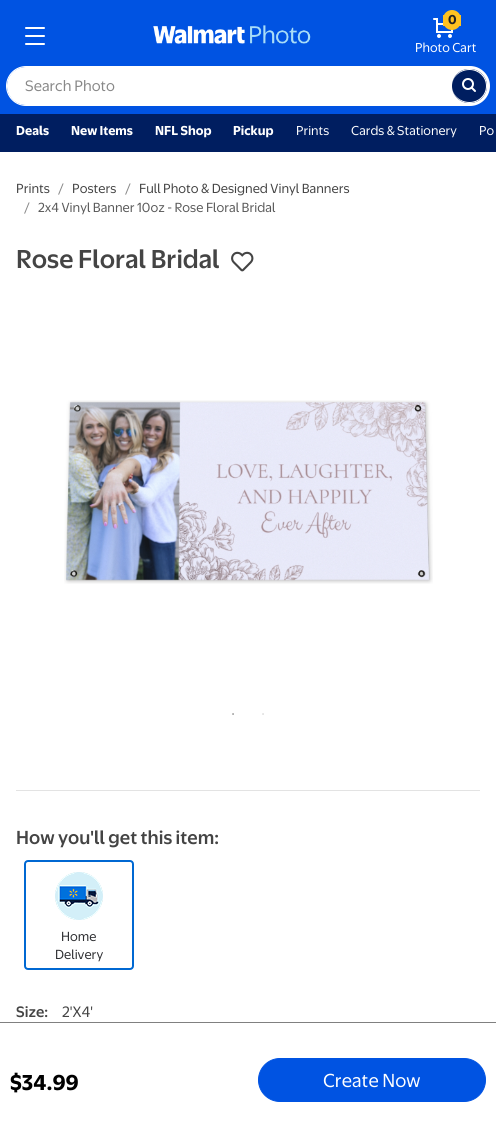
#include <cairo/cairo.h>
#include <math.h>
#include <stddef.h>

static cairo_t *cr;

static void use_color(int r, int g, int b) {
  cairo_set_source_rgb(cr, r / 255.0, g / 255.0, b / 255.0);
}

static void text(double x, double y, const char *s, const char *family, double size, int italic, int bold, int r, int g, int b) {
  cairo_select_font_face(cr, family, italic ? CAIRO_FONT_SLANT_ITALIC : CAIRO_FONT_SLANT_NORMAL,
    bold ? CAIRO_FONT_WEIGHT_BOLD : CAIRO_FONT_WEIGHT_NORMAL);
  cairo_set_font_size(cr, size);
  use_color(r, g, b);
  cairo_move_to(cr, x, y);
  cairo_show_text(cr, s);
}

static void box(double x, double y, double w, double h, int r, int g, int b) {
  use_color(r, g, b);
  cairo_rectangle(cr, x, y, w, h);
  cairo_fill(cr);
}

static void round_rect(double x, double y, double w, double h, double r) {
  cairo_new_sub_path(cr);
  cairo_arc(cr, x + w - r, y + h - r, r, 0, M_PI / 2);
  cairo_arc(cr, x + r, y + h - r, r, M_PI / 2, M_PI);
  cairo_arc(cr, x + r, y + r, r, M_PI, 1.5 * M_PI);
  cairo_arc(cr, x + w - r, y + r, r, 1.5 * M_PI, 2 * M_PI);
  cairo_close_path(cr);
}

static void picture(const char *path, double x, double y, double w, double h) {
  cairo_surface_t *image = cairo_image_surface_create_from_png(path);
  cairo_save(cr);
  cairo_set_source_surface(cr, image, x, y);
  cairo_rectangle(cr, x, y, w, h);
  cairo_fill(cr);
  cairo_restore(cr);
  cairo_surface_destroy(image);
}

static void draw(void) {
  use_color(255, 255, 255);
  cairo_paint(cr);
  box(0, 0, 496, 114, 0, 83, 226);
  picture("img_01.png", 25, 27, 20, 18);
  picture("img_02.png", 153, 25, 158, 19);
  picture("img_03.png", 433, 18, 20, 20);
  use_color(255, 194, 32);
  round_rect(443, 10, 18, 20, 9);
  cairo_fill(cr);
  box(459, 15, 2, 11, 255, 194, 32);
  box(443, 15, 2, 11, 255, 194, 32);
  use_color(255, 255, 255);
  cairo_new_path(cr);
  cairo_move_to(cr, 26, 67);
  cairo_line_to(cr, 452, 67);
  cairo_line_to(cr, 452, 105);
  cairo_line_to(cr, 26, 105);
  cairo_curve_to(cr, 15.5, 105, 7, 96.5, 7, 86);
  cairo_curve_to(cr, 7, 75.5, 15.5, 67, 26, 67);
  cairo_close_path(cr);
  cairo_fill(cr);
  cairo_set_fill_rule(cr, CAIRO_FILL_RULE_EVEN_ODD);
  cairo_new_path(cr);
  cairo_move_to(cr, 26, 66);
  cairo_line_to(cr, 452, 66);
  cairo_line_to(cr, 452, 106);
  cairo_line_to(cr, 26, 106);
  cairo_curve_to(cr, 15, 106, 6, 97, 6, 86);
  cairo_curve_to(cr, 6, 75, 15, 66, 26, 66);
  cairo_close_path(cr);
  cairo_move_to(cr, 26, 67);
  cairo_line_to(cr, 452, 67);
  cairo_line_to(cr, 452, 105);
  cairo_line_to(cr, 26, 105);
  cairo_curve_to(cr, 16, 105, 7, 96, 7, 86);
  cairo_curve_to(cr, 7, 76, 16, 67, 26, 67);
  cairo_close_path(cr);
  cairo_fill(cr);
  cairo_new_path(cr);
  cairo_move_to(cr, 452, 66);
  cairo_line_to(cr, 470, 66);
  cairo_curve_to(cr, 481, 66, 490, 75, 490, 86);
  cairo_curve_to(cr, 490, 97, 481, 106, 470, 106);
  cairo_line_to(cr, 452, 106);
  cairo_close_path(cr);
  cairo_fill(cr);
  use_color(0, 30, 96);
  round_rect(452, 69, 35, 34, 17);
  cairo_fill(cr);
  use_color(255, 255, 255);
  cairo_new_path(cr);
  cairo_move_to(cr, 469.5, 69);
  cairo_curve_to(cr, 479, 69, 487, 76.5, 487, 86);
  cairo_curve_to(cr, 487, 95.5, 479, 103, 469.5, 103);
  cairo_curve_to(cr, 460, 103, 452, 95.5, 452, 86);
  cairo_curve_to(cr, 452, 76.5, 460, 69, 469.5, 69);
  cairo_close_path(cr);
  cairo_move_to(cr, 469.5, 70);
  cairo_curve_to(cr, 478.5, 70, 486, 77, 486, 86);
  cairo_curve_to(cr, 486, 95, 478.5, 102, 469.5, 102);
  cairo_curve_to(cr, 460, 102, 452, 95, 452, 86);
  cairo_curve_to(cr, 452, 77, 460, 70, 469.5, 70);
  cairo_close_path(cr);
  cairo_fill(cr);
  picture("img_04.png", 462, 78, 14, 14);
  box(0, 114, 496, 38, 0, 30, 96);
  picture("img_05.png", 231, 251, 23, 21);
  picture("img_06.png", 64, 400, 369, 184);
  box(16, 790, 464, 1, 227, 227, 227);
  round_rect(25, 861, 108, 108, 3);
  use_color(0, 104, 210);
  cairo_stroke(cr);
  use_color(233, 248, 252);
  cairo_arc(cr, 79, 896, 24, 0, 2 * M_PI);
  cairo_fill(cr);
  picture("img_07.png", 55, 872, 48, 48);
  box(0, 1022, 496, 1, 128, 128, 128);
  use_color(0, 83, 226);
  round_rect(258.5, 1058.5, 227, 43, 21.5);
  cairo_fill_preserve(cr);
  cairo_set_line_width(cr, 1);
  cairo_stroke(cr);
  text(448, 24, "0", "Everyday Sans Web", 12, 0, 1, 34, 34, 34);
  text(415, 52, "Photo Cart", "Everyday Sans Web", 12, 0, 0, 255, 255, 255);
  text(25, 91, "Search Photo", "Everyday Sans Web", 14, 0, 0, 136, 136, 136);
  text(16, 135, "Deals", "Everyday Sans Web", 12, 0, 1, 255, 255, 255);
  text(71, 135, "New Items", "Everyday Sans Web", 12, 0, 1, 255, 255, 255);
  text(155, 135, "NFL Shop", "Everyday Sans Web", 12, 0, 1, 255, 255, 255);
  text(233, 135, "Pickup", "Everyday Sans Web", 12, 0, 1, 255, 255, 255);
  text(296, 135, "Prints", "Everyday Sans Web", 12, 0, 0, 255, 255, 255);
  text(351, 135, "Cards & Stationery", "Everyday Sans Web", 12, 0, 0, 255, 255, 255);
  text(479, 135, "Po", "Everyday Sans Web", 12, 0, 0, 255, 255, 255);
  text(16, 193, "Prints", "Everyday Sans Web", 12.25, 0, 0, 68, 68, 68);
  text(58, 193, "/", "Everyday Sans Web", 12.25, 0, 0, 136, 136, 136);
  text(72, 193, "Posters", "Everyday Sans Web", 12.25, 0, 0, 68, 68, 68);
  text(125, 193, "/", "Everyday Sans Web", 12.25, 0, 0, 136, 136, 136);
  text(139, 193, "Full Photo & Designed Vinyl Banners", "Everyday Sans Web", 12.25, 0, 0, 68, 68, 68);
  text(24, 212, "/", "Everyday Sans Web", 12.25, 0, 0, 136, 136, 136);
  text(38, 212, "2x4 Vinyl Banner 10oz - Rose Floral Bridal", "Everyday Sans Web", 12.25, 0, 0, 89, 89, 89);
  text(16, 268, "Rose Floral Bridal", "Everyday Sans Web Medium", 24, 0, 0, 68, 68, 68);
  text(232, 716, "•", "Liberation Serif", 6, 0, 0, 68, 68, 68);
  text(262, 716, "•", "Liberation Serif", 6, 0, 0, 191, 191, 191);
  text(16, 844, "How you'll get this item:", "Everyday Sans Web Medium", 17.5, 0, 0, 68, 68, 68);
  text(61, 941, "Home", "Everyday Sans Web", 12.25, 0, 0, 46, 47, 50);
  text(55, 959, "Delivery", "Everyday Sans Web", 12.25, 0, 0, 46, 47, 50);
  text(16, 1017, "Size:", "Everyday Sans Web Medium", 14, 0, 0, 68, 68, 68);
  text(62, 1017, "2'X4'", "Everyday Sans Web", 14, 0, 0, 68, 68, 68);
  text(10, 1090, "$34.99", "Everyday Sans Web", 20, 0, 1, 0, 0, 0);
  text(323, 1087, "Create Now", "Everyday Sans Web", 17.5, 0, 0, 255, 255, 255);
}

int main(void) {
  cairo_surface_t *surface = cairo_image_surface_create(CAIRO_FORMAT_RGB24, 496, 1136);
  cr = cairo_create(surface);
  cairo_font_options_t *options = cairo_font_options_create();
  cairo_font_options_set_hint_metrics(options, CAIRO_HINT_METRICS_OFF);
  cairo_font_options_set_hint_style(options, CAIRO_HINT_STYLE_NONE);
  cairo_set_font_options(cr, options);
  cairo_set_miter_limit(cr, 4);
  draw();
  cairo_surface_write_to_png(surface, "out.png");
  cairo_font_options_destroy(options);
  cairo_destroy(cr);
  cairo_surface_destroy(surface);
  return 0;
}
